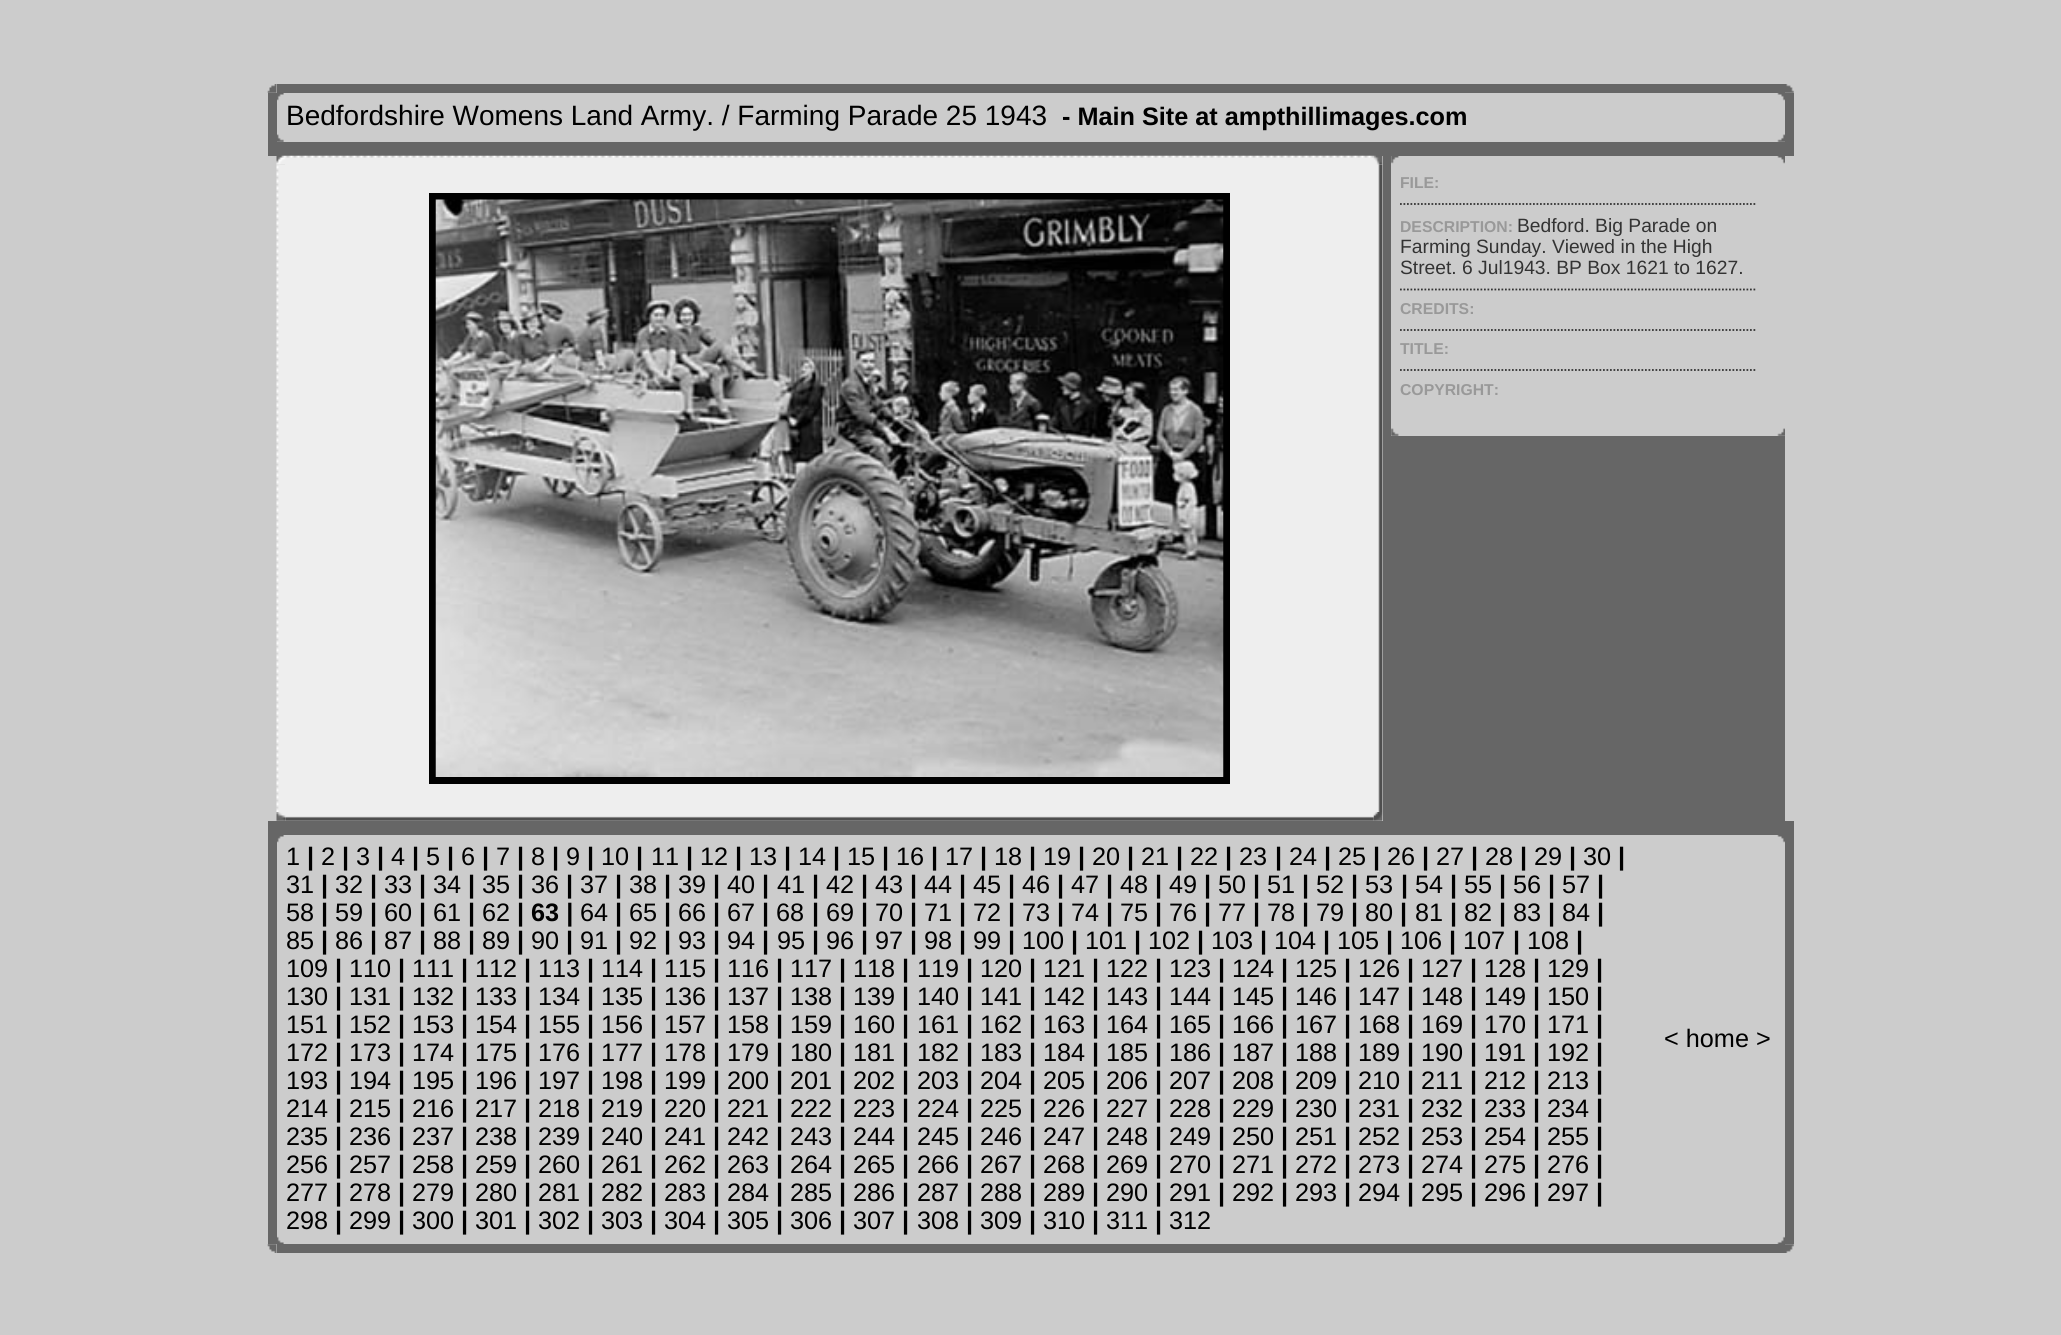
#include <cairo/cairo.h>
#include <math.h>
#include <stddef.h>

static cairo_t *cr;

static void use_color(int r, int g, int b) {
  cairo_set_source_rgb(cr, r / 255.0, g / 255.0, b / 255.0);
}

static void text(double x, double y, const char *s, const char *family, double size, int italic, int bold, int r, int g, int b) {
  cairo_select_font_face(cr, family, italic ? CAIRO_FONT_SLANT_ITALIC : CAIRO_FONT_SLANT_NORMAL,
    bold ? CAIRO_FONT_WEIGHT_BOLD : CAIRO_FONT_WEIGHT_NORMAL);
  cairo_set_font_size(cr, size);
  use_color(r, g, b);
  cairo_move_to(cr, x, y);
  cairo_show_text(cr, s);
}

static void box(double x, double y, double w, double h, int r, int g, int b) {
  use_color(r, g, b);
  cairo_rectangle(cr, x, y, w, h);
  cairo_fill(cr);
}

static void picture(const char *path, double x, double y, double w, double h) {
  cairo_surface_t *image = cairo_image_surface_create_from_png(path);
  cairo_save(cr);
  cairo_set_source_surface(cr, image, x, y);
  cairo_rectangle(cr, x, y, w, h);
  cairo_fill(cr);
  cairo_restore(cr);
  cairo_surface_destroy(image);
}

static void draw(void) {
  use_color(204, 204, 204);
  cairo_paint(cr);
  picture("img_01.png", 267, 84, 10, 9);
  box(277, 84, 1508, 9, 102, 102, 102);
  picture("img_02.png", 1785, 84, 9, 9);
  box(268, 93, 1526, 63, 102, 102, 102);
  box(277, 93, 1508, 9, 204, 204, 204);
  picture("img_03.png", 276, 92, 8, 9);
  picture("img_04.png", 1777, 93, 8, 8);
  box(277, 102, 1508, 31, 204, 204, 204);
  box(277, 133, 1508, 9, 204, 204, 204);
  picture("img_05.png", 277, 134, 7, 8);
  picture("img_06.png", 1777, 134, 8, 8);
  box(285, 156, 1098, 9, 238, 238, 238);
  picture("img_08.png", 285, 155, 1089, 3);
  picture("img_10.png", 276, 164, 10, 648);
  picture("img_07.png", 276, 155, 10, 10);
  box(285, 165, 1098, 647, 238, 238, 238);
  picture("img_11.png", 1378, 164, 5, 648);
  picture("img_09.png", 1373, 155, 10, 10);
  cairo_rectangle(cr, 432.5, 196.5, 794, 584);
  use_color(0, 0, 0);
  cairo_set_line_width(cr, 7);
  cairo_stroke(cr);
  picture("img_12.png", 435, 199, 789, 578);
  box(285, 812, 1098, 9, 238, 238, 238);
  picture("img_14.png", 285, 816, 1089, 5);
  picture("img_13.png", 276, 812, 10, 9);
  picture("img_15.png", 1373, 812, 10, 9);
  box(1383, 156, 8, 665, 102, 102, 102);
  box(1391, 436, 394, 385, 102, 102, 102);
  picture("img_16.png", 1391, 156, 8, 8);
  picture("img_04.png", 1777, 156, 8, 8);
  cairo_new_path(cr);
  cairo_move_to(cr, 1400, 204);
  cairo_line_to(cr, 1757, 204);
  use_color(51, 51, 51);
  cairo_set_line_width(cr, 1.8);
  cairo_set_dash(cr, (double[]){1.75, 1.75}, 2, 0);
  cairo_stroke(cr);
  cairo_new_path(cr);
  cairo_move_to(cr, 1400, 289.5);
  cairo_line_to(cr, 1757, 289.5);
  cairo_stroke(cr);
  cairo_new_path(cr);
  cairo_move_to(cr, 1400, 330);
  cairo_line_to(cr, 1757, 330);
  cairo_stroke(cr);
  cairo_new_path(cr);
  cairo_move_to(cr, 1400, 370);
  cairo_line_to(cr, 1757, 370);
  cairo_stroke(cr);
  picture("img_17.png", 1391, 428, 8, 8);
  picture("img_06.png", 1777, 428, 8, 8);
  box(268, 821, 1526, 423, 102, 102, 102);
  box(277, 835, 1508, 9, 204, 204, 204);
  picture("img_18.png", 277, 835, 7, 8);
  picture("img_04.png", 1777, 835, 8, 8);
  box(277, 844, 1508, 392, 204, 204, 204);
  box(277, 1236, 1508, 8, 204, 204, 204);
  box(277, 1244, 1508, 9, 102, 102, 102);
  picture("img_19.png", 276, 1236, 8, 9);
  picture("img_20.png", 1777, 1236, 8, 8);
  picture("img_21.png", 267, 1244, 10, 9);
  picture("img_22.png", 1785, 1244, 9, 9);
  text(286, 125, "Bedfordshire Womens Land Army. / Farming Parade 25 1943", "Liberation Sans", 28, 0, 0, 0, 0, 0);
  text(1062, 125, "- Main Site at ampthillimages.com", "Liberation Sans", 25.25, 0, 1, 0, 0, 0);
  text(1400, 188, "FILE:", "Liberation Sans", 15.75, 0, 1, 153, 153, 153);
  text(1400, 232, "DESCRIPTION:", "Liberation Sans", 15.75, 0, 1, 153, 153, 153);
  text(1517, 232, "Bedford. Big Parade on", "Liberation Sans", 19.25, 0, 0, 51, 51, 51);
  text(1400, 253, "Farming Sunday. Viewed in the High", "Liberation Sans", 19.25, 0, 0, 51, 51, 51);
  text(1400, 274, "Street. 6 Jul1943. BP Box 1621 to 1627.", "Liberation Sans", 19.25, 0, 0, 51, 51, 51);
  text(1400, 314, "CREDITS:", "Liberation Sans", 15.75, 0, 1, 153, 153, 153);
  text(1400, 354, "TITLE:", "Liberation Sans", 15.75, 0, 1, 153, 153, 153);
  text(1400, 395, "COPYRIGHT:", "Liberation Sans", 15.75, 0, 1, 153, 153, 153);
  text(286, 865, "1", "Liberation Sans", 25.25, 0, 0, 0, 0, 0);
  text(307, 865, "|", "Liberation Sans", 25.25, 0, 1, 0, 0, 0);
  text(321, 865, "2", "Liberation Sans", 25.25, 0, 0, 0, 0, 0);
  text(342, 865, "|", "Liberation Sans", 25.25, 0, 1, 0, 0, 0);
  text(356, 865, "3", "Liberation Sans", 25.25, 0, 0, 0, 0, 0);
  text(377, 865, "|", "Liberation Sans", 25.25, 0, 1, 0, 0, 0);
  text(391, 865, "4", "Liberation Sans", 25.25, 0, 0, 0, 0, 0);
  text(412, 865, "|", "Liberation Sans", 25.25, 0, 1, 0, 0, 0);
  text(426, 865, "5", "Liberation Sans", 25.25, 0, 0, 0, 0, 0);
  text(447, 865, "|", "Liberation Sans", 25.25, 0, 1, 0, 0, 0);
  text(461, 865, "6", "Liberation Sans", 25.25, 0, 0, 0, 0, 0);
  text(482, 865, "|", "Liberation Sans", 25.25, 0, 1, 0, 0, 0);
  text(496, 865, "7", "Liberation Sans", 25.25, 0, 0, 0, 0, 0);
  text(517, 865, "|", "Liberation Sans", 25.25, 0, 1, 0, 0, 0);
  text(531, 865, "8", "Liberation Sans", 25.25, 0, 0, 0, 0, 0);
  text(552, 865, "|", "Liberation Sans", 25.25, 0, 1, 0, 0, 0);
  text(566, 865, "9", "Liberation Sans", 25.25, 0, 0, 0, 0, 0);
  text(587, 865, "|", "Liberation Sans", 25.25, 0, 1, 0, 0, 0);
  text(601, 865, "10", "Liberation Sans", 25.25, 0, 0, 0, 0, 0);
  text(636, 865, "|", "Liberation Sans", 25.25, 0, 1, 0, 0, 0);
  text(651, 865, "11", "Liberation Sans", 25.25, 0, 0, 0, 0, 0);
  text(686, 865, "|", "Liberation Sans", 25.25, 0, 1, 0, 0, 0);
  text(700, 865, "12", "Liberation Sans", 25.25, 0, 0, 0, 0, 0);
  text(735, 865, "|", "Liberation Sans", 25.25, 0, 1, 0, 0, 0);
  text(749, 865, "13", "Liberation Sans", 25.25, 0, 0, 0, 0, 0);
  text(784, 865, "|", "Liberation Sans", 25.25, 0, 1, 0, 0, 0);
  text(798, 865, "14", "Liberation Sans", 25.25, 0, 0, 0, 0, 0);
  text(833, 865, "|", "Liberation Sans", 25.25, 0, 1, 0, 0, 0);
  text(847, 865, "15", "Liberation Sans", 25.25, 0, 0, 0, 0, 0);
  text(882, 865, "|", "Liberation Sans", 25.25, 0, 1, 0, 0, 0);
  text(896, 865, "16", "Liberation Sans", 25.25, 0, 0, 0, 0, 0);
  text(931, 865, "|", "Liberation Sans", 25.25, 0, 1, 0, 0, 0);
  text(945, 865, "17", "Liberation Sans", 25.25, 0, 0, 0, 0, 0);
  text(980, 865, "|", "Liberation Sans", 25.25, 0, 1, 0, 0, 0);
  text(994, 865, "18", "Liberation Sans", 25.25, 0, 0, 0, 0, 0);
  text(1029, 865, "|", "Liberation Sans", 25.25, 0, 1, 0, 0, 0);
  text(1043, 865, "19", "Liberation Sans", 25.25, 0, 0, 0, 0, 0);
  text(1078, 865, "|", "Liberation Sans", 25.25, 0, 1, 0, 0, 0);
  text(1092, 865, "20", "Liberation Sans", 25.25, 0, 0, 0, 0, 0);
  text(1127, 865, "|", "Liberation Sans", 25.25, 0, 1, 0, 0, 0);
  text(1141, 865, "21", "Liberation Sans", 25.25, 0, 0, 0, 0, 0);
  text(1176, 865, "|", "Liberation Sans", 25.25, 0, 1, 0, 0, 0);
  text(1190, 865, "22", "Liberation Sans", 25.25, 0, 0, 0, 0, 0);
  text(1225, 865, "|", "Liberation Sans", 25.25, 0, 1, 0, 0, 0);
  text(1239, 865, "23", "Liberation Sans", 25.25, 0, 0, 0, 0, 0);
  text(1275, 865, "|", "Liberation Sans", 25.25, 0, 1, 0, 0, 0);
  text(1289, 865, "24", "Liberation Sans", 25.25, 0, 0, 0, 0, 0);
  text(1324, 865, "|", "Liberation Sans", 25.25, 0, 1, 0, 0, 0);
  text(1338, 865, "25", "Liberation Sans", 25.25, 0, 0, 0, 0, 0);
  text(1373, 865, "|", "Liberation Sans", 25.25, 0, 1, 0, 0, 0);
  text(1387, 865, "26", "Liberation Sans", 25.25, 0, 0, 0, 0, 0);
  text(1422, 865, "|", "Liberation Sans", 25.25, 0, 1, 0, 0, 0);
  text(1436, 865, "27", "Liberation Sans", 25.25, 0, 0, 0, 0, 0);
  text(1471, 865, "|", "Liberation Sans", 25.25, 0, 1, 0, 0, 0);
  text(1485, 865, "28", "Liberation Sans", 25.25, 0, 0, 0, 0, 0);
  text(1520, 865, "|", "Liberation Sans", 25.25, 0, 1, 0, 0, 0);
  text(1534, 865, "29", "Liberation Sans", 25.25, 0, 0, 0, 0, 0);
  text(1569, 865, "|", "Liberation Sans", 25.25, 0, 1, 0, 0, 0);
  text(1583, 865, "30", "Liberation Sans", 25.25, 0, 0, 0, 0, 0);
  text(1618, 865, "|", "Liberation Sans", 25.25, 0, 1, 0, 0, 0);
  text(286, 893, "31", "Liberation Sans", 25.25, 0, 0, 0, 0, 0);
  text(321, 893, "|", "Liberation Sans", 25.25, 0, 1, 0, 0, 0);
  text(335, 893, "32", "Liberation Sans", 25.25, 0, 0, 0, 0, 0);
  text(370, 893, "|", "Liberation Sans", 25.25, 0, 1, 0, 0, 0);
  text(384, 893, "33", "Liberation Sans", 25.25, 0, 0, 0, 0, 0);
  text(419, 893, "|", "Liberation Sans", 25.25, 0, 1, 0, 0, 0);
  text(433, 893, "34", "Liberation Sans", 25.25, 0, 0, 0, 0, 0);
  text(468, 893, "|", "Liberation Sans", 25.25, 0, 1, 0, 0, 0);
  text(482, 893, "35", "Liberation Sans", 25.25, 0, 0, 0, 0, 0);
  text(517, 893, "|", "Liberation Sans", 25.25, 0, 1, 0, 0, 0);
  text(531, 893, "36", "Liberation Sans", 25.25, 0, 0, 0, 0, 0);
  text(566, 893, "|", "Liberation Sans", 25.25, 0, 1, 0, 0, 0);
  text(580, 893, "37", "Liberation Sans", 25.25, 0, 0, 0, 0, 0);
  text(615, 893, "|", "Liberation Sans", 25.25, 0, 1, 0, 0, 0);
  text(629, 893, "38", "Liberation Sans", 25.25, 0, 0, 0, 0, 0);
  text(664, 893, "|", "Liberation Sans", 25.25, 0, 1, 0, 0, 0);
  text(678, 893, "39", "Liberation Sans", 25.25, 0, 0, 0, 0, 0);
  text(713, 893, "|", "Liberation Sans", 25.25, 0, 1, 0, 0, 0);
  text(727, 893, "40", "Liberation Sans", 25.25, 0, 0, 0, 0, 0);
  text(762, 893, "|", "Liberation Sans", 25.25, 0, 1, 0, 0, 0);
  text(777, 893, "41", "Liberation Sans", 25.25, 0, 0, 0, 0, 0);
  text(812, 893, "|", "Liberation Sans", 25.25, 0, 1, 0, 0, 0);
  text(826, 893, "42", "Liberation Sans", 25.25, 0, 0, 0, 0, 0);
  text(861, 893, "|", "Liberation Sans", 25.25, 0, 1, 0, 0, 0);
  text(875, 893, "43", "Liberation Sans", 25.25, 0, 0, 0, 0, 0);
  text(910, 893, "|", "Liberation Sans", 25.25, 0, 1, 0, 0, 0);
  text(924, 893, "44", "Liberation Sans", 25.25, 0, 0, 0, 0, 0);
  text(959, 893, "|", "Liberation Sans", 25.25, 0, 1, 0, 0, 0);
  text(973, 893, "45", "Liberation Sans", 25.25, 0, 0, 0, 0, 0);
  text(1008, 893, "|", "Liberation Sans", 25.25, 0, 1, 0, 0, 0);
  text(1022, 893, "46", "Liberation Sans", 25.25, 0, 0, 0, 0, 0);
  text(1057, 893, "|", "Liberation Sans", 25.25, 0, 1, 0, 0, 0);
  text(1071, 893, "47", "Liberation Sans", 25.25, 0, 0, 0, 0, 0);
  text(1106, 893, "|", "Liberation Sans", 25.25, 0, 1, 0, 0, 0);
  text(1120, 893, "48", "Liberation Sans", 25.25, 0, 0, 0, 0, 0);
  text(1155, 893, "|", "Liberation Sans", 25.25, 0, 1, 0, 0, 0);
  text(1169, 893, "49", "Liberation Sans", 25.25, 0, 0, 0, 0, 0);
  text(1204, 893, "|", "Liberation Sans", 25.25, 0, 1, 0, 0, 0);
  text(1218, 893, "50", "Liberation Sans", 25.25, 0, 0, 0, 0, 0);
  text(1253, 893, "|", "Liberation Sans", 25.25, 0, 1, 0, 0, 0);
  text(1267, 893, "51", "Liberation Sans", 25.25, 0, 0, 0, 0, 0);
  text(1302, 893, "|", "Liberation Sans", 25.25, 0, 1, 0, 0, 0);
  text(1316, 893, "52", "Liberation Sans", 25.25, 0, 0, 0, 0, 0);
  text(1351, 893, "|", "Liberation Sans", 25.25, 0, 1, 0, 0, 0);
  text(1365, 893, "53", "Liberation Sans", 25.25, 0, 0, 0, 0, 0);
  text(1401, 893, "|", "Liberation Sans", 25.25, 0, 1, 0, 0, 0);
  text(1415, 893, "54", "Liberation Sans", 25.25, 0, 0, 0, 0, 0);
  text(1450, 893, "|", "Liberation Sans", 25.25, 0, 1, 0, 0, 0);
  text(1464, 893, "55", "Liberation Sans", 25.25, 0, 0, 0, 0, 0);
  text(1499, 893, "|", "Liberation Sans", 25.25, 0, 1, 0, 0, 0);
  text(1513, 893, "56", "Liberation Sans", 25.25, 0, 0, 0, 0, 0);
  text(1548, 893, "|", "Liberation Sans", 25.25, 0, 1, 0, 0, 0);
  text(1562, 893, "57", "Liberation Sans", 25.25, 0, 0, 0, 0, 0);
  text(1597, 893, "|", "Liberation Sans", 25.25, 0, 1, 0, 0, 0);
  text(286, 921, "58", "Liberation Sans", 25.25, 0, 0, 0, 0, 0);
  text(321, 921, "|", "Liberation Sans", 25.25, 0, 1, 0, 0, 0);
  text(335, 921, "59", "Liberation Sans", 25.25, 0, 0, 0, 0, 0);
  text(370, 921, "|", "Liberation Sans", 25.25, 0, 1, 0, 0, 0);
  text(384, 921, "60", "Liberation Sans", 25.25, 0, 0, 0, 0, 0);
  text(419, 921, "|", "Liberation Sans", 25.25, 0, 1, 0, 0, 0);
  text(433, 921, "61", "Liberation Sans", 25.25, 0, 0, 0, 0, 0);
  text(468, 921, "|", "Liberation Sans", 25.25, 0, 1, 0, 0, 0);
  text(482, 921, "62", "Liberation Sans", 25.25, 0, 0, 0, 0, 0);
  text(517, 921, "| 63 |", "Liberation Sans", 25.25, 0, 1, 0, 0, 0);
  text(580, 921, "64", "Liberation Sans", 25.25, 0, 0, 0, 0, 0);
  text(615, 921, "|", "Liberation Sans", 25.25, 0, 1, 0, 0, 0);
  text(629, 921, "65", "Liberation Sans", 25.25, 0, 0, 0, 0, 0);
  text(664, 921, "|", "Liberation Sans", 25.25, 0, 1, 0, 0, 0);
  text(678, 921, "66", "Liberation Sans", 25.25, 0, 0, 0, 0, 0);
  text(713, 921, "|", "Liberation Sans", 25.25, 0, 1, 0, 0, 0);
  text(727, 921, "67", "Liberation Sans", 25.25, 0, 0, 0, 0, 0);
  text(762, 921, "|", "Liberation Sans", 25.25, 0, 1, 0, 0, 0);
  text(776, 921, "68", "Liberation Sans", 25.25, 0, 0, 0, 0, 0);
  text(812, 921, "|", "Liberation Sans", 25.25, 0, 1, 0, 0, 0);
  text(826, 921, "69", "Liberation Sans", 25.25, 0, 0, 0, 0, 0);
  text(861, 921, "|", "Liberation Sans", 25.25, 0, 1, 0, 0, 0);
  text(875, 921, "70", "Liberation Sans", 25.25, 0, 0, 0, 0, 0);
  text(910, 921, "|", "Liberation Sans", 25.25, 0, 1, 0, 0, 0);
  text(924, 921, "71", "Liberation Sans", 25.25, 0, 0, 0, 0, 0);
  text(959, 921, "|", "Liberation Sans", 25.25, 0, 1, 0, 0, 0);
  text(973, 921, "72", "Liberation Sans", 25.25, 0, 0, 0, 0, 0);
  text(1008, 921, "|", "Liberation Sans", 25.25, 0, 1, 0, 0, 0);
  text(1022, 921, "73", "Liberation Sans", 25.25, 0, 0, 0, 0, 0);
  text(1057, 921, "|", "Liberation Sans", 25.25, 0, 1, 0, 0, 0);
  text(1071, 921, "74", "Liberation Sans", 25.25, 0, 0, 0, 0, 0);
  text(1106, 921, "|", "Liberation Sans", 25.25, 0, 1, 0, 0, 0);
  text(1120, 921, "75", "Liberation Sans", 25.25, 0, 0, 0, 0, 0);
  text(1155, 921, "|", "Liberation Sans", 25.25, 0, 1, 0, 0, 0);
  text(1169, 921, "76", "Liberation Sans", 25.25, 0, 0, 0, 0, 0);
  text(1204, 921, "|", "Liberation Sans", 25.25, 0, 1, 0, 0, 0);
  text(1218, 921, "77", "Liberation Sans", 25.25, 0, 0, 0, 0, 0);
  text(1253, 921, "|", "Liberation Sans", 25.25, 0, 1, 0, 0, 0);
  text(1267, 921, "78", "Liberation Sans", 25.25, 0, 0, 0, 0, 0);
  text(1302, 921, "|", "Liberation Sans", 25.25, 0, 1, 0, 0, 0);
  text(1316, 921, "79", "Liberation Sans", 25.25, 0, 0, 0, 0, 0);
  text(1351, 921, "|", "Liberation Sans", 25.25, 0, 1, 0, 0, 0);
  text(1365, 921, "80", "Liberation Sans", 25.25, 0, 0, 0, 0, 0);
  text(1400, 921, "|", "Liberation Sans", 25.25, 0, 1, 0, 0, 0);
  text(1415, 921, "81", "Liberation Sans", 25.25, 0, 0, 0, 0, 0);
  text(1450, 921, "|", "Liberation Sans", 25.25, 0, 1, 0, 0, 0);
  text(1464, 921, "82", "Liberation Sans", 25.25, 0, 0, 0, 0, 0);
  text(1499, 921, "|", "Liberation Sans", 25.25, 0, 1, 0, 0, 0);
  text(1513, 921, "83", "Liberation Sans", 25.25, 0, 0, 0, 0, 0);
  text(1548, 921, "|", "Liberation Sans", 25.25, 0, 1, 0, 0, 0);
  text(1562, 921, "84", "Liberation Sans", 25.25, 0, 0, 0, 0, 0);
  text(1597, 921, "|", "Liberation Sans", 25.25, 0, 1, 0, 0, 0);
  text(286, 949, "85", "Liberation Sans", 25.25, 0, 0, 0, 0, 0);
  text(321, 949, "|", "Liberation Sans", 25.25, 0, 1, 0, 0, 0);
  text(335, 949, "86", "Liberation Sans", 25.25, 0, 0, 0, 0, 0);
  text(370, 949, "|", "Liberation Sans", 25.25, 0, 1, 0, 0, 0);
  text(384, 949, "87", "Liberation Sans", 25.25, 0, 0, 0, 0, 0);
  text(419, 949, "|", "Liberation Sans", 25.25, 0, 1, 0, 0, 0);
  text(433, 949, "88", "Liberation Sans", 25.25, 0, 0, 0, 0, 0);
  text(468, 949, "|", "Liberation Sans", 25.25, 0, 1, 0, 0, 0);
  text(482, 949, "89", "Liberation Sans", 25.25, 0, 0, 0, 0, 0);
  text(517, 949, "|", "Liberation Sans", 25.25, 0, 1, 0, 0, 0);
  text(531, 949, "90", "Liberation Sans", 25.25, 0, 0, 0, 0, 0);
  text(566, 949, "|", "Liberation Sans", 25.25, 0, 1, 0, 0, 0);
  text(580, 949, "91", "Liberation Sans", 25.25, 0, 0, 0, 0, 0);
  text(615, 949, "|", "Liberation Sans", 25.25, 0, 1, 0, 0, 0);
  text(629, 949, "92", "Liberation Sans", 25.25, 0, 0, 0, 0, 0);
  text(664, 949, "|", "Liberation Sans", 25.25, 0, 1, 0, 0, 0);
  text(678, 949, "93", "Liberation Sans", 25.25, 0, 0, 0, 0, 0);
  text(713, 949, "|", "Liberation Sans", 25.25, 0, 1, 0, 0, 0);
  text(727, 949, "94", "Liberation Sans", 25.25, 0, 0, 0, 0, 0);
  text(762, 949, "|", "Liberation Sans", 25.25, 0, 1, 0, 0, 0);
  text(777, 949, "95", "Liberation Sans", 25.25, 0, 0, 0, 0, 0);
  text(812, 949, "|", "Liberation Sans", 25.25, 0, 1, 0, 0, 0);
  text(826, 949, "96", "Liberation Sans", 25.25, 0, 0, 0, 0, 0);
  text(861, 949, "|", "Liberation Sans", 25.25, 0, 1, 0, 0, 0);
  text(875, 949, "97", "Liberation Sans", 25.25, 0, 0, 0, 0, 0);
  text(910, 949, "|", "Liberation Sans", 25.25, 0, 1, 0, 0, 0);
  text(924, 949, "98", "Liberation Sans", 25.25, 0, 0, 0, 0, 0);
  text(959, 949, "|", "Liberation Sans", 25.25, 0, 1, 0, 0, 0);
  text(973, 949, "99", "Liberation Sans", 25.25, 0, 0, 0, 0, 0);
  text(1008, 949, "|", "Liberation Sans", 25.25, 0, 1, 0, 0, 0);
  text(1022, 949, "100", "Liberation Sans", 25.25, 0, 0, 0, 0, 0);
  text(1071, 949, "|", "Liberation Sans", 25.25, 0, 1, 0, 0, 0);
  text(1085, 949, "101", "Liberation Sans", 25.25, 0, 0, 0, 0, 0);
  text(1134, 949, "|", "Liberation Sans", 25.25, 0, 1, 0, 0, 0);
  text(1148, 949, "102", "Liberation Sans", 25.25, 0, 0, 0, 0, 0);
  text(1197, 949, "|", "Liberation Sans", 25.25, 0, 1, 0, 0, 0);
  text(1211, 949, "103", "Liberation Sans", 25.25, 0, 0, 0, 0, 0);
  text(1260, 949, "|", "Liberation Sans", 25.25, 0, 1, 0, 0, 0);
  text(1274, 949, "104", "Liberation Sans", 25.25, 0, 0, 0, 0, 0);
  text(1323, 949, "|", "Liberation Sans", 25.25, 0, 1, 0, 0, 0);
  text(1337, 949, "105", "Liberation Sans", 25.25, 0, 0, 0, 0, 0);
  text(1386, 949, "|", "Liberation Sans", 25.25, 0, 1, 0, 0, 0);
  text(1400, 949, "106", "Liberation Sans", 25.25, 0, 0, 0, 0, 0);
  text(1449, 949, "|", "Liberation Sans", 25.25, 0, 1, 0, 0, 0);
  text(1463, 949, "107", "Liberation Sans", 25.25, 0, 0, 0, 0, 0);
  text(1513, 949, "|", "Liberation Sans", 25.25, 0, 1, 0, 0, 0);
  text(1527, 949, "108", "Liberation Sans", 25.25, 0, 0, 0, 0, 0);
  text(1576, 949, "|", "Liberation Sans", 25.25, 0, 1, 0, 0, 0);
  text(286, 977, "109", "Liberation Sans", 25.25, 0, 0, 0, 0, 0);
  text(335, 977, "|", "Liberation Sans", 25.25, 0, 1, 0, 0, 0);
  text(349, 977, "110", "Liberation Sans", 25.25, 0, 0, 0, 0, 0);
  text(398, 977, "|", "Liberation Sans", 25.25, 0, 1, 0, 0, 0);
  text(412, 977, "111", "Liberation Sans", 25.25, 0, 0, 0, 0, 0);
  text(461, 977, "|", "Liberation Sans", 25.25, 0, 1, 0, 0, 0);
  text(475, 977, "112", "Liberation Sans", 25.25, 0, 0, 0, 0, 0);
  text(524, 977, "|", "Liberation Sans", 25.25, 0, 1, 0, 0, 0);
  text(538, 977, "113", "Liberation Sans", 25.25, 0, 0, 0, 0, 0);
  text(587, 977, "|", "Liberation Sans", 25.25, 0, 1, 0, 0, 0);
  text(601, 977, "114", "Liberation Sans", 25.25, 0, 0, 0, 0, 0);
  text(650, 977, "|", "Liberation Sans", 25.25, 0, 1, 0, 0, 0);
  text(664, 977, "115", "Liberation Sans", 25.25, 0, 0, 0, 0, 0);
  text(713, 977, "|", "Liberation Sans", 25.25, 0, 1, 0, 0, 0);
  text(727, 977, "116", "Liberation Sans", 25.25, 0, 0, 0, 0, 0);
  text(776, 977, "|", "Liberation Sans", 25.25, 0, 1, 0, 0, 0);
  text(790, 977, "117", "Liberation Sans", 25.25, 0, 0, 0, 0, 0);
  text(839, 977, "|", "Liberation Sans", 25.25, 0, 1, 0, 0, 0);
  text(853, 977, "118", "Liberation Sans", 25.25, 0, 0, 0, 0, 0);
  text(902, 977, "|", "Liberation Sans", 25.25, 0, 1, 0, 0, 0);
  text(917, 977, "119", "Liberation Sans", 25.25, 0, 0, 0, 0, 0);
  text(966, 977, "|", "Liberation Sans", 25.25, 0, 1, 0, 0, 0);
  text(980, 977, "120", "Liberation Sans", 25.25, 0, 0, 0, 0, 0);
  text(1029, 977, "|", "Liberation Sans", 25.25, 0, 1, 0, 0, 0);
  text(1043, 977, "121", "Liberation Sans", 25.25, 0, 0, 0, 0, 0);
  text(1092, 977, "|", "Liberation Sans", 25.25, 0, 1, 0, 0, 0);
  text(1106, 977, "122", "Liberation Sans", 25.25, 0, 0, 0, 0, 0);
  text(1155, 977, "|", "Liberation Sans", 25.25, 0, 1, 0, 0, 0);
  text(1169, 977, "123", "Liberation Sans", 25.25, 0, 0, 0, 0, 0);
  text(1218, 977, "|", "Liberation Sans", 25.25, 0, 1, 0, 0, 0);
  text(1232, 977, "124", "Liberation Sans", 25.25, 0, 0, 0, 0, 0);
  text(1281, 977, "|", "Liberation Sans", 25.25, 0, 1, 0, 0, 0);
  text(1295, 977, "125", "Liberation Sans", 25.25, 0, 0, 0, 0, 0);
  text(1344, 977, "|", "Liberation Sans", 25.25, 0, 1, 0, 0, 0);
  text(1358, 977, "126", "Liberation Sans", 25.25, 0, 0, 0, 0, 0);
  text(1407, 977, "|", "Liberation Sans", 25.25, 0, 1, 0, 0, 0);
  text(1421, 977, "127", "Liberation Sans", 25.25, 0, 0, 0, 0, 0);
  text(1470, 977, "|", "Liberation Sans", 25.25, 0, 1, 0, 0, 0);
  text(1484, 977, "128", "Liberation Sans", 25.25, 0, 0, 0, 0, 0);
  text(1533, 977, "|", "Liberation Sans", 25.25, 0, 1, 0, 0, 0);
  text(1547, 977, "129", "Liberation Sans", 25.25, 0, 0, 0, 0, 0);
  text(1596, 977, "|", "Liberation Sans", 25.25, 0, 1, 0, 0, 0);
  text(286, 1005, "130", "Liberation Sans", 25.25, 0, 0, 0, 0, 0);
  text(335, 1005, "|", "Liberation Sans", 25.25, 0, 1, 0, 0, 0);
  text(349, 1005, "131", "Liberation Sans", 25.25, 0, 0, 0, 0, 0);
  text(398, 1005, "|", "Liberation Sans", 25.25, 0, 1, 0, 0, 0);
  text(412, 1005, "132", "Liberation Sans", 25.25, 0, 0, 0, 0, 0);
  text(461, 1005, "|", "Liberation Sans", 25.25, 0, 1, 0, 0, 0);
  text(475, 1005, "133", "Liberation Sans", 25.25, 0, 0, 0, 0, 0);
  text(524, 1005, "|", "Liberation Sans", 25.25, 0, 1, 0, 0, 0);
  text(538, 1005, "134", "Liberation Sans", 25.25, 0, 0, 0, 0, 0);
  text(587, 1005, "|", "Liberation Sans", 25.25, 0, 1, 0, 0, 0);
  text(601, 1005, "135", "Liberation Sans", 25.25, 0, 0, 0, 0, 0);
  text(650, 1005, "|", "Liberation Sans", 25.25, 0, 1, 0, 0, 0);
  text(664, 1005, "136", "Liberation Sans", 25.25, 0, 0, 0, 0, 0);
  text(713, 1005, "|", "Liberation Sans", 25.25, 0, 1, 0, 0, 0);
  text(727, 1005, "137", "Liberation Sans", 25.25, 0, 0, 0, 0, 0);
  text(776, 1005, "|", "Liberation Sans", 25.25, 0, 1, 0, 0, 0);
  text(790, 1005, "138", "Liberation Sans", 25.25, 0, 0, 0, 0, 0);
  text(839, 1005, "|", "Liberation Sans", 25.25, 0, 1, 0, 0, 0);
  text(853, 1005, "139", "Liberation Sans", 25.25, 0, 0, 0, 0, 0);
  text(902, 1005, "|", "Liberation Sans", 25.25, 0, 1, 0, 0, 0);
  text(917, 1005, "140", "Liberation Sans", 25.25, 0, 0, 0, 0, 0);
  text(966, 1005, "|", "Liberation Sans", 25.25, 0, 1, 0, 0, 0);
  text(980, 1005, "141", "Liberation Sans", 25.25, 0, 0, 0, 0, 0);
  text(1029, 1005, "|", "Liberation Sans", 25.25, 0, 1, 0, 0, 0);
  text(1043, 1005, "142", "Liberation Sans", 25.25, 0, 0, 0, 0, 0);
  text(1092, 1005, "|", "Liberation Sans", 25.25, 0, 1, 0, 0, 0);
  text(1106, 1005, "143", "Liberation Sans", 25.25, 0, 0, 0, 0, 0);
  text(1155, 1005, "|", "Liberation Sans", 25.25, 0, 1, 0, 0, 0);
  text(1169, 1005, "144", "Liberation Sans", 25.25, 0, 0, 0, 0, 0);
  text(1218, 1005, "|", "Liberation Sans", 25.25, 0, 1, 0, 0, 0);
  text(1232, 1005, "145", "Liberation Sans", 25.25, 0, 0, 0, 0, 0);
  text(1281, 1005, "|", "Liberation Sans", 25.25, 0, 1, 0, 0, 0);
  text(1295, 1005, "146", "Liberation Sans", 25.25, 0, 0, 0, 0, 0);
  text(1344, 1005, "|", "Liberation Sans", 25.25, 0, 1, 0, 0, 0);
  text(1358, 1005, "147", "Liberation Sans", 25.25, 0, 0, 0, 0, 0);
  text(1407, 1005, "|", "Liberation Sans", 25.25, 0, 1, 0, 0, 0);
  text(1421, 1005, "148", "Liberation Sans", 25.25, 0, 0, 0, 0, 0);
  text(1470, 1005, "|", "Liberation Sans", 25.25, 0, 1, 0, 0, 0);
  text(1484, 1005, "149", "Liberation Sans", 25.25, 0, 0, 0, 0, 0);
  text(1533, 1005, "|", "Liberation Sans", 25.25, 0, 1, 0, 0, 0);
  text(1547, 1005, "150", "Liberation Sans", 25.25, 0, 0, 0, 0, 0);
  text(1596, 1005, "|", "Liberation Sans", 25.25, 0, 1, 0, 0, 0);
  text(286, 1033, "151", "Liberation Sans", 25.25, 0, 0, 0, 0, 0);
  text(335, 1033, "|", "Liberation Sans", 25.25, 0, 1, 0, 0, 0);
  text(349, 1033, "152", "Liberation Sans", 25.25, 0, 0, 0, 0, 0);
  text(398, 1033, "|", "Liberation Sans", 25.25, 0, 1, 0, 0, 0);
  text(412, 1033, "153", "Liberation Sans", 25.25, 0, 0, 0, 0, 0);
  text(461, 1033, "|", "Liberation Sans", 25.25, 0, 1, 0, 0, 0);
  text(475, 1033, "154", "Liberation Sans", 25.25, 0, 0, 0, 0, 0);
  text(524, 1033, "|", "Liberation Sans", 25.25, 0, 1, 0, 0, 0);
  text(538, 1033, "155", "Liberation Sans", 25.25, 0, 0, 0, 0, 0);
  text(587, 1033, "|", "Liberation Sans", 25.25, 0, 1, 0, 0, 0);
  text(601, 1033, "156", "Liberation Sans", 25.25, 0, 0, 0, 0, 0);
  text(650, 1033, "|", "Liberation Sans", 25.25, 0, 1, 0, 0, 0);
  text(664, 1033, "157", "Liberation Sans", 25.25, 0, 0, 0, 0, 0);
  text(713, 1033, "|", "Liberation Sans", 25.25, 0, 1, 0, 0, 0);
  text(727, 1033, "158", "Liberation Sans", 25.25, 0, 0, 0, 0, 0);
  text(776, 1033, "|", "Liberation Sans", 25.25, 0, 1, 0, 0, 0);
  text(790, 1033, "159", "Liberation Sans", 25.25, 0, 0, 0, 0, 0);
  text(839, 1033, "|", "Liberation Sans", 25.25, 0, 1, 0, 0, 0);
  text(853, 1033, "160", "Liberation Sans", 25.25, 0, 0, 0, 0, 0);
  text(902, 1033, "|", "Liberation Sans", 25.25, 0, 1, 0, 0, 0);
  text(917, 1033, "161", "Liberation Sans", 25.25, 0, 0, 0, 0, 0);
  text(966, 1033, "|", "Liberation Sans", 25.25, 0, 1, 0, 0, 0);
  text(980, 1033, "162", "Liberation Sans", 25.25, 0, 0, 0, 0, 0);
  text(1029, 1033, "|", "Liberation Sans", 25.25, 0, 1, 0, 0, 0);
  text(1043, 1033, "163", "Liberation Sans", 25.25, 0, 0, 0, 0, 0);
  text(1092, 1033, "|", "Liberation Sans", 25.25, 0, 1, 0, 0, 0);
  text(1106, 1033, "164", "Liberation Sans", 25.25, 0, 0, 0, 0, 0);
  text(1155, 1033, "|", "Liberation Sans", 25.25, 0, 1, 0, 0, 0);
  text(1169, 1033, "165", "Liberation Sans", 25.25, 0, 0, 0, 0, 0);
  text(1218, 1033, "|", "Liberation Sans", 25.25, 0, 1, 0, 0, 0);
  text(1232, 1033, "166", "Liberation Sans", 25.25, 0, 0, 0, 0, 0);
  text(1281, 1033, "|", "Liberation Sans", 25.25, 0, 1, 0, 0, 0);
  text(1295, 1033, "167", "Liberation Sans", 25.25, 0, 0, 0, 0, 0);
  text(1344, 1033, "|", "Liberation Sans", 25.25, 0, 1, 0, 0, 0);
  text(1358, 1033, "168", "Liberation Sans", 25.25, 0, 0, 0, 0, 0);
  text(1407, 1033, "|", "Liberation Sans", 25.25, 0, 1, 0, 0, 0);
  text(1421, 1033, "169", "Liberation Sans", 25.25, 0, 0, 0, 0, 0);
  text(1470, 1033, "|", "Liberation Sans", 25.25, 0, 1, 0, 0, 0);
  text(1484, 1033, "170", "Liberation Sans", 25.25, 0, 0, 0, 0, 0);
  text(1533, 1033, "|", "Liberation Sans", 25.25, 0, 1, 0, 0, 0);
  text(1547, 1033, "171", "Liberation Sans", 25.25, 0, 0, 0, 0, 0);
  text(1596, 1033, "|", "Liberation Sans", 25.25, 0, 1, 0, 0, 0);
  text(286, 1061, "172", "Liberation Sans", 25.25, 0, 0, 0, 0, 0);
  text(335, 1061, "|", "Liberation Sans", 25.25, 0, 1, 0, 0, 0);
  text(349, 1061, "173", "Liberation Sans", 25.25, 0, 0, 0, 0, 0);
  text(398, 1061, "|", "Liberation Sans", 25.25, 0, 1, 0, 0, 0);
  text(412, 1061, "174", "Liberation Sans", 25.25, 0, 0, 0, 0, 0);
  text(461, 1061, "|", "Liberation Sans", 25.25, 0, 1, 0, 0, 0);
  text(475, 1061, "175", "Liberation Sans", 25.25, 0, 0, 0, 0, 0);
  text(524, 1061, "|", "Liberation Sans", 25.25, 0, 1, 0, 0, 0);
  text(538, 1061, "176", "Liberation Sans", 25.25, 0, 0, 0, 0, 0);
  text(587, 1061, "|", "Liberation Sans", 25.25, 0, 1, 0, 0, 0);
  text(601, 1061, "177", "Liberation Sans", 25.25, 0, 0, 0, 0, 0);
  text(650, 1061, "|", "Liberation Sans", 25.25, 0, 1, 0, 0, 0);
  text(664, 1061, "178", "Liberation Sans", 25.25, 0, 0, 0, 0, 0);
  text(713, 1061, "|", "Liberation Sans", 25.25, 0, 1, 0, 0, 0);
  text(727, 1061, "179", "Liberation Sans", 25.25, 0, 0, 0, 0, 0);
  text(776, 1061, "|", "Liberation Sans", 25.25, 0, 1, 0, 0, 0);
  text(790, 1061, "180", "Liberation Sans", 25.25, 0, 0, 0, 0, 0);
  text(839, 1061, "|", "Liberation Sans", 25.25, 0, 1, 0, 0, 0);
  text(853, 1061, "181", "Liberation Sans", 25.25, 0, 0, 0, 0, 0);
  text(902, 1061, "|", "Liberation Sans", 25.25, 0, 1, 0, 0, 0);
  text(917, 1061, "182", "Liberation Sans", 25.25, 0, 0, 0, 0, 0);
  text(966, 1061, "|", "Liberation Sans", 25.25, 0, 1, 0, 0, 0);
  text(980, 1061, "183", "Liberation Sans", 25.25, 0, 0, 0, 0, 0);
  text(1029, 1061, "|", "Liberation Sans", 25.25, 0, 1, 0, 0, 0);
  text(1043, 1061, "184", "Liberation Sans", 25.25, 0, 0, 0, 0, 0);
  text(1092, 1061, "|", "Liberation Sans", 25.25, 0, 1, 0, 0, 0);
  text(1106, 1061, "185", "Liberation Sans", 25.25, 0, 0, 0, 0, 0);
  text(1155, 1061, "|", "Liberation Sans", 25.25, 0, 1, 0, 0, 0);
  text(1169, 1061, "186", "Liberation Sans", 25.25, 0, 0, 0, 0, 0);
  text(1218, 1061, "|", "Liberation Sans", 25.25, 0, 1, 0, 0, 0);
  text(1232, 1061, "187", "Liberation Sans", 25.25, 0, 0, 0, 0, 0);
  text(1281, 1061, "|", "Liberation Sans", 25.25, 0, 1, 0, 0, 0);
  text(1295, 1061, "188", "Liberation Sans", 25.25, 0, 0, 0, 0, 0);
  text(1344, 1061, "|", "Liberation Sans", 25.25, 0, 1, 0, 0, 0);
  text(1358, 1061, "189", "Liberation Sans", 25.25, 0, 0, 0, 0, 0);
  text(1407, 1061, "|", "Liberation Sans", 25.25, 0, 1, 0, 0, 0);
  text(1421, 1061, "190", "Liberation Sans", 25.25, 0, 0, 0, 0, 0);
  text(1470, 1061, "|", "Liberation Sans", 25.25, 0, 1, 0, 0, 0);
  text(1484, 1061, "191", "Liberation Sans", 25.25, 0, 0, 0, 0, 0);
  text(1533, 1061, "|", "Liberation Sans", 25.25, 0, 1, 0, 0, 0);
  text(1547, 1061, "192", "Liberation Sans", 25.25, 0, 0, 0, 0, 0);
  text(1596, 1061, "|", "Liberation Sans", 25.25, 0, 1, 0, 0, 0);
  text(286, 1089, "193", "Liberation Sans", 25.25, 0, 0, 0, 0, 0);
  text(335, 1089, "|", "Liberation Sans", 25.25, 0, 1, 0, 0, 0);
  text(349, 1089, "194", "Liberation Sans", 25.25, 0, 0, 0, 0, 0);
  text(398, 1089, "|", "Liberation Sans", 25.25, 0, 1, 0, 0, 0);
  text(412, 1089, "195", "Liberation Sans", 25.25, 0, 0, 0, 0, 0);
  text(461, 1089, "|", "Liberation Sans", 25.25, 0, 1, 0, 0, 0);
  text(475, 1089, "196", "Liberation Sans", 25.25, 0, 0, 0, 0, 0);
  text(524, 1089, "|", "Liberation Sans", 25.25, 0, 1, 0, 0, 0);
  text(538, 1089, "197", "Liberation Sans", 25.25, 0, 0, 0, 0, 0);
  text(587, 1089, "|", "Liberation Sans", 25.25, 0, 1, 0, 0, 0);
  text(601, 1089, "198", "Liberation Sans", 25.25, 0, 0, 0, 0, 0);
  text(650, 1089, "|", "Liberation Sans", 25.25, 0, 1, 0, 0, 0);
  text(664, 1089, "199", "Liberation Sans", 25.25, 0, 0, 0, 0, 0);
  text(713, 1089, "|", "Liberation Sans", 25.25, 0, 1, 0, 0, 0);
  text(727, 1089, "200", "Liberation Sans", 25.25, 0, 0, 0, 0, 0);
  text(776, 1089, "|", "Liberation Sans", 25.25, 0, 1, 0, 0, 0);
  text(790, 1089, "201", "Liberation Sans", 25.25, 0, 0, 0, 0, 0);
  text(839, 1089, "|", "Liberation Sans", 25.25, 0, 1, 0, 0, 0);
  text(853, 1089, "202", "Liberation Sans", 25.25, 0, 0, 0, 0, 0);
  text(902, 1089, "|", "Liberation Sans", 25.25, 0, 1, 0, 0, 0);
  text(917, 1089, "203", "Liberation Sans", 25.25, 0, 0, 0, 0, 0);
  text(966, 1089, "|", "Liberation Sans", 25.25, 0, 1, 0, 0, 0);
  text(980, 1089, "204", "Liberation Sans", 25.25, 0, 0, 0, 0, 0);
  text(1029, 1089, "|", "Liberation Sans", 25.25, 0, 1, 0, 0, 0);
  text(1043, 1089, "205", "Liberation Sans", 25.25, 0, 0, 0, 0, 0);
  text(1092, 1089, "|", "Liberation Sans", 25.25, 0, 1, 0, 0, 0);
  text(1106, 1089, "206", "Liberation Sans", 25.25, 0, 0, 0, 0, 0);
  text(1155, 1089, "|", "Liberation Sans", 25.25, 0, 1, 0, 0, 0);
  text(1169, 1089, "207", "Liberation Sans", 25.25, 0, 0, 0, 0, 0);
  text(1218, 1089, "|", "Liberation Sans", 25.25, 0, 1, 0, 0, 0);
  text(1232, 1089, "208", "Liberation Sans", 25.25, 0, 0, 0, 0, 0);
  text(1281, 1089, "|", "Liberation Sans", 25.25, 0, 1, 0, 0, 0);
  text(1295, 1089, "209", "Liberation Sans", 25.25, 0, 0, 0, 0, 0);
  text(1344, 1089, "|", "Liberation Sans", 25.25, 0, 1, 0, 0, 0);
  text(1358, 1089, "210", "Liberation Sans", 25.25, 0, 0, 0, 0, 0);
  text(1407, 1089, "|", "Liberation Sans", 25.25, 0, 1, 0, 0, 0);
  text(1421, 1089, "211", "Liberation Sans", 25.25, 0, 0, 0, 0, 0);
  text(1470, 1089, "|", "Liberation Sans", 25.25, 0, 1, 0, 0, 0);
  text(1484, 1089, "212", "Liberation Sans", 25.25, 0, 0, 0, 0, 0);
  text(1533, 1089, "|", "Liberation Sans", 25.25, 0, 1, 0, 0, 0);
  text(1547, 1089, "213", "Liberation Sans", 25.25, 0, 0, 0, 0, 0);
  text(1596, 1089, "|", "Liberation Sans", 25.25, 0, 1, 0, 0, 0);
  text(286, 1117, "214", "Liberation Sans", 25.25, 0, 0, 0, 0, 0);
  text(335, 1117, "|", "Liberation Sans", 25.25, 0, 1, 0, 0, 0);
  text(349, 1117, "215", "Liberation Sans", 25.25, 0, 0, 0, 0, 0);
  text(398, 1117, "|", "Liberation Sans", 25.25, 0, 1, 0, 0, 0);
  text(412, 1117, "216", "Liberation Sans", 25.25, 0, 0, 0, 0, 0);
  text(461, 1117, "|", "Liberation Sans", 25.25, 0, 1, 0, 0, 0);
  text(475, 1117, "217", "Liberation Sans", 25.25, 0, 0, 0, 0, 0);
  text(524, 1117, "|", "Liberation Sans", 25.25, 0, 1, 0, 0, 0);
  text(538, 1117, "218", "Liberation Sans", 25.25, 0, 0, 0, 0, 0);
  text(587, 1117, "|", "Liberation Sans", 25.25, 0, 1, 0, 0, 0);
  text(601, 1117, "219", "Liberation Sans", 25.25, 0, 0, 0, 0, 0);
  text(650, 1117, "|", "Liberation Sans", 25.25, 0, 1, 0, 0, 0);
  text(664, 1117, "220", "Liberation Sans", 25.25, 0, 0, 0, 0, 0);
  text(713, 1117, "|", "Liberation Sans", 25.25, 0, 1, 0, 0, 0);
  text(727, 1117, "221", "Liberation Sans", 25.25, 0, 0, 0, 0, 0);
  text(776, 1117, "|", "Liberation Sans", 25.25, 0, 1, 0, 0, 0);
  text(790, 1117, "222", "Liberation Sans", 25.25, 0, 0, 0, 0, 0);
  text(839, 1117, "|", "Liberation Sans", 25.25, 0, 1, 0, 0, 0);
  text(853, 1117, "223", "Liberation Sans", 25.25, 0, 0, 0, 0, 0);
  text(902, 1117, "|", "Liberation Sans", 25.25, 0, 1, 0, 0, 0);
  text(917, 1117, "224", "Liberation Sans", 25.25, 0, 0, 0, 0, 0);
  text(966, 1117, "|", "Liberation Sans", 25.25, 0, 1, 0, 0, 0);
  text(980, 1117, "225", "Liberation Sans", 25.25, 0, 0, 0, 0, 0);
  text(1029, 1117, "|", "Liberation Sans", 25.25, 0, 1, 0, 0, 0);
  text(1043, 1117, "226", "Liberation Sans", 25.25, 0, 0, 0, 0, 0);
  text(1092, 1117, "|", "Liberation Sans", 25.25, 0, 1, 0, 0, 0);
  text(1106, 1117, "227", "Liberation Sans", 25.25, 0, 0, 0, 0, 0);
  text(1155, 1117, "|", "Liberation Sans", 25.25, 0, 1, 0, 0, 0);
  text(1169, 1117, "228", "Liberation Sans", 25.25, 0, 0, 0, 0, 0);
  text(1218, 1117, "|", "Liberation Sans", 25.25, 0, 1, 0, 0, 0);
  text(1232, 1117, "229", "Liberation Sans", 25.25, 0, 0, 0, 0, 0);
  text(1281, 1117, "|", "Liberation Sans", 25.25, 0, 1, 0, 0, 0);
  text(1295, 1117, "230", "Liberation Sans", 25.25, 0, 0, 0, 0, 0);
  text(1344, 1117, "|", "Liberation Sans", 25.25, 0, 1, 0, 0, 0);
  text(1358, 1117, "231", "Liberation Sans", 25.25, 0, 0, 0, 0, 0);
  text(1407, 1117, "|", "Liberation Sans", 25.25, 0, 1, 0, 0, 0);
  text(1421, 1117, "232", "Liberation Sans", 25.25, 0, 0, 0, 0, 0);
  text(1470, 1117, "|", "Liberation Sans", 25.25, 0, 1, 0, 0, 0);
  text(1484, 1117, "233", "Liberation Sans", 25.25, 0, 0, 0, 0, 0);
  text(1533, 1117, "|", "Liberation Sans", 25.25, 0, 1, 0, 0, 0);
  text(1547, 1117, "234", "Liberation Sans", 25.25, 0, 0, 0, 0, 0);
  text(1596, 1117, "|", "Liberation Sans", 25.25, 0, 1, 0, 0, 0);
  text(286, 1145, "235", "Liberation Sans", 25.25, 0, 0, 0, 0, 0);
  text(335, 1145, "|", "Liberation Sans", 25.25, 0, 1, 0, 0, 0);
  text(349, 1145, "236", "Liberation Sans", 25.25, 0, 0, 0, 0, 0);
  text(398, 1145, "|", "Liberation Sans", 25.25, 0, 1, 0, 0, 0);
  text(412, 1145, "237", "Liberation Sans", 25.25, 0, 0, 0, 0, 0);
  text(461, 1145, "|", "Liberation Sans", 25.25, 0, 1, 0, 0, 0);
  text(475, 1145, "238", "Liberation Sans", 25.25, 0, 0, 0, 0, 0);
  text(524, 1145, "|", "Liberation Sans", 25.25, 0, 1, 0, 0, 0);
  text(538, 1145, "239", "Liberation Sans", 25.25, 0, 0, 0, 0, 0);
  text(587, 1145, "|", "Liberation Sans", 25.25, 0, 1, 0, 0, 0);
  text(601, 1145, "240", "Liberation Sans", 25.25, 0, 0, 0, 0, 0);
  text(650, 1145, "|", "Liberation Sans", 25.25, 0, 1, 0, 0, 0);
  text(664, 1145, "241", "Liberation Sans", 25.25, 0, 0, 0, 0, 0);
  text(713, 1145, "|", "Liberation Sans", 25.25, 0, 1, 0, 0, 0);
  text(727, 1145, "242", "Liberation Sans", 25.25, 0, 0, 0, 0, 0);
  text(776, 1145, "|", "Liberation Sans", 25.25, 0, 1, 0, 0, 0);
  text(790, 1145, "243", "Liberation Sans", 25.25, 0, 0, 0, 0, 0);
  text(839, 1145, "|", "Liberation Sans", 25.25, 0, 1, 0, 0, 0);
  text(853, 1145, "244", "Liberation Sans", 25.25, 0, 0, 0, 0, 0);
  text(902, 1145, "|", "Liberation Sans", 25.25, 0, 1, 0, 0, 0);
  text(917, 1145, "245", "Liberation Sans", 25.25, 0, 0, 0, 0, 0);
  text(966, 1145, "|", "Liberation Sans", 25.25, 0, 1, 0, 0, 0);
  text(980, 1145, "246", "Liberation Sans", 25.25, 0, 0, 0, 0, 0);
  text(1029, 1145, "|", "Liberation Sans", 25.25, 0, 1, 0, 0, 0);
  text(1043, 1145, "247", "Liberation Sans", 25.25, 0, 0, 0, 0, 0);
  text(1092, 1145, "|", "Liberation Sans", 25.25, 0, 1, 0, 0, 0);
  text(1106, 1145, "248", "Liberation Sans", 25.25, 0, 0, 0, 0, 0);
  text(1155, 1145, "|", "Liberation Sans", 25.25, 0, 1, 0, 0, 0);
  text(1169, 1145, "249", "Liberation Sans", 25.25, 0, 0, 0, 0, 0);
  text(1218, 1145, "|", "Liberation Sans", 25.25, 0, 1, 0, 0, 0);
  text(1232, 1145, "250", "Liberation Sans", 25.25, 0, 0, 0, 0, 0);
  text(1281, 1145, "|", "Liberation Sans", 25.25, 0, 1, 0, 0, 0);
  text(1295, 1145, "251", "Liberation Sans", 25.25, 0, 0, 0, 0, 0);
  text(1344, 1145, "|", "Liberation Sans", 25.25, 0, 1, 0, 0, 0);
  text(1358, 1145, "252", "Liberation Sans", 25.25, 0, 0, 0, 0, 0);
  text(1407, 1145, "|", "Liberation Sans", 25.25, 0, 1, 0, 0, 0);
  text(1421, 1145, "253", "Liberation Sans", 25.25, 0, 0, 0, 0, 0);
  text(1470, 1145, "|", "Liberation Sans", 25.25, 0, 1, 0, 0, 0);
  text(1484, 1145, "254", "Liberation Sans", 25.25, 0, 0, 0, 0, 0);
  text(1533, 1145, "|", "Liberation Sans", 25.25, 0, 1, 0, 0, 0);
  text(1547, 1145, "255", "Liberation Sans", 25.25, 0, 0, 0, 0, 0);
  text(1596, 1145, "|", "Liberation Sans", 25.25, 0, 1, 0, 0, 0);
  text(286, 1173, "256", "Liberation Sans", 25.25, 0, 0, 0, 0, 0);
  text(335, 1173, "|", "Liberation Sans", 25.25, 0, 1, 0, 0, 0);
  text(349, 1173, "257", "Liberation Sans", 25.25, 0, 0, 0, 0, 0);
  text(398, 1173, "|", "Liberation Sans", 25.25, 0, 1, 0, 0, 0);
  text(412, 1173, "258", "Liberation Sans", 25.25, 0, 0, 0, 0, 0);
  text(461, 1173, "|", "Liberation Sans", 25.25, 0, 1, 0, 0, 0);
  text(475, 1173, "259", "Liberation Sans", 25.25, 0, 0, 0, 0, 0);
  text(524, 1173, "|", "Liberation Sans", 25.25, 0, 1, 0, 0, 0);
  text(538, 1173, "260", "Liberation Sans", 25.25, 0, 0, 0, 0, 0);
  text(587, 1173, "|", "Liberation Sans", 25.25, 0, 1, 0, 0, 0);
  text(601, 1173, "261", "Liberation Sans", 25.25, 0, 0, 0, 0, 0);
  text(650, 1173, "|", "Liberation Sans", 25.25, 0, 1, 0, 0, 0);
  text(664, 1173, "262", "Liberation Sans", 25.25, 0, 0, 0, 0, 0);
  text(713, 1173, "|", "Liberation Sans", 25.25, 0, 1, 0, 0, 0);
  text(727, 1173, "263", "Liberation Sans", 25.25, 0, 0, 0, 0, 0);
  text(776, 1173, "|", "Liberation Sans", 25.25, 0, 1, 0, 0, 0);
  text(790, 1173, "264", "Liberation Sans", 25.25, 0, 0, 0, 0, 0);
  text(839, 1173, "|", "Liberation Sans", 25.25, 0, 1, 0, 0, 0);
  text(853, 1173, "265", "Liberation Sans", 25.25, 0, 0, 0, 0, 0);
  text(902, 1173, "|", "Liberation Sans", 25.25, 0, 1, 0, 0, 0);
  text(917, 1173, "266", "Liberation Sans", 25.25, 0, 0, 0, 0, 0);
  text(966, 1173, "|", "Liberation Sans", 25.25, 0, 1, 0, 0, 0);
  text(980, 1173, "267", "Liberation Sans", 25.25, 0, 0, 0, 0, 0);
  text(1029, 1173, "|", "Liberation Sans", 25.25, 0, 1, 0, 0, 0);
  text(1043, 1173, "268", "Liberation Sans", 25.25, 0, 0, 0, 0, 0);
  text(1092, 1173, "|", "Liberation Sans", 25.25, 0, 1, 0, 0, 0);
  text(1106, 1173, "269", "Liberation Sans", 25.25, 0, 0, 0, 0, 0);
  text(1155, 1173, "|", "Liberation Sans", 25.25, 0, 1, 0, 0, 0);
  text(1169, 1173, "270", "Liberation Sans", 25.25, 0, 0, 0, 0, 0);
  text(1218, 1173, "|", "Liberation Sans", 25.25, 0, 1, 0, 0, 0);
  text(1232, 1173, "271", "Liberation Sans", 25.25, 0, 0, 0, 0, 0);
  text(1281, 1173, "|", "Liberation Sans", 25.25, 0, 1, 0, 0, 0);
  text(1295, 1173, "272", "Liberation Sans", 25.25, 0, 0, 0, 0, 0);
  text(1344, 1173, "|", "Liberation Sans", 25.25, 0, 1, 0, 0, 0);
  text(1358, 1173, "273", "Liberation Sans", 25.25, 0, 0, 0, 0, 0);
  text(1407, 1173, "|", "Liberation Sans", 25.25, 0, 1, 0, 0, 0);
  text(1421, 1173, "274", "Liberation Sans", 25.25, 0, 0, 0, 0, 0);
  text(1470, 1173, "|", "Liberation Sans", 25.25, 0, 1, 0, 0, 0);
  text(1484, 1173, "275", "Liberation Sans", 25.25, 0, 0, 0, 0, 0);
  text(1533, 1173, "|", "Liberation Sans", 25.25, 0, 1, 0, 0, 0);
  text(1547, 1173, "276", "Liberation Sans", 25.25, 0, 0, 0, 0, 0);
  text(1596, 1173, "|", "Liberation Sans", 25.25, 0, 1, 0, 0, 0);
  text(286, 1201, "277", "Liberation Sans", 25.25, 0, 0, 0, 0, 0);
  text(335, 1201, "|", "Liberation Sans", 25.25, 0, 1, 0, 0, 0);
  text(349, 1201, "278", "Liberation Sans", 25.25, 0, 0, 0, 0, 0);
  text(398, 1201, "|", "Liberation Sans", 25.25, 0, 1, 0, 0, 0);
  text(412, 1201, "279", "Liberation Sans", 25.25, 0, 0, 0, 0, 0);
  text(461, 1201, "|", "Liberation Sans", 25.25, 0, 1, 0, 0, 0);
  text(475, 1201, "280", "Liberation Sans", 25.25, 0, 0, 0, 0, 0);
  text(524, 1201, "|", "Liberation Sans", 25.25, 0, 1, 0, 0, 0);
  text(538, 1201, "281", "Liberation Sans", 25.25, 0, 0, 0, 0, 0);
  text(587, 1201, "|", "Liberation Sans", 25.25, 0, 1, 0, 0, 0);
  text(601, 1201, "282", "Liberation Sans", 25.25, 0, 0, 0, 0, 0);
  text(650, 1201, "|", "Liberation Sans", 25.25, 0, 1, 0, 0, 0);
  text(664, 1201, "283", "Liberation Sans", 25.25, 0, 0, 0, 0, 0);
  text(713, 1201, "|", "Liberation Sans", 25.25, 0, 1, 0, 0, 0);
  text(727, 1201, "284", "Liberation Sans", 25.25, 0, 0, 0, 0, 0);
  text(776, 1201, "|", "Liberation Sans", 25.25, 0, 1, 0, 0, 0);
  text(790, 1201, "285", "Liberation Sans", 25.25, 0, 0, 0, 0, 0);
  text(839, 1201, "|", "Liberation Sans", 25.25, 0, 1, 0, 0, 0);
  text(853, 1201, "286", "Liberation Sans", 25.25, 0, 0, 0, 0, 0);
  text(902, 1201, "|", "Liberation Sans", 25.25, 0, 1, 0, 0, 0);
  text(917, 1201, "287", "Liberation Sans", 25.25, 0, 0, 0, 0, 0);
  text(966, 1201, "|", "Liberation Sans", 25.25, 0, 1, 0, 0, 0);
  text(980, 1201, "288", "Liberation Sans", 25.25, 0, 0, 0, 0, 0);
  text(1029, 1201, "|", "Liberation Sans", 25.25, 0, 1, 0, 0, 0);
  text(1043, 1201, "289", "Liberation Sans", 25.25, 0, 0, 0, 0, 0);
  text(1092, 1201, "|", "Liberation Sans", 25.25, 0, 1, 0, 0, 0);
  text(1106, 1201, "290", "Liberation Sans", 25.25, 0, 0, 0, 0, 0);
  text(1155, 1201, "|", "Liberation Sans", 25.25, 0, 1, 0, 0, 0);
  text(1169, 1201, "291", "Liberation Sans", 25.25, 0, 0, 0, 0, 0);
  text(1218, 1201, "|", "Liberation Sans", 25.25, 0, 1, 0, 0, 0);
  text(1232, 1201, "292", "Liberation Sans", 25.25, 0, 0, 0, 0, 0);
  text(1281, 1201, "|", "Liberation Sans", 25.25, 0, 1, 0, 0, 0);
  text(1295, 1201, "293", "Liberation Sans", 25.25, 0, 0, 0, 0, 0);
  text(1344, 1201, "|", "Liberation Sans", 25.25, 0, 1, 0, 0, 0);
  text(1358, 1201, "294", "Liberation Sans", 25.25, 0, 0, 0, 0, 0);
  text(1407, 1201, "|", "Liberation Sans", 25.25, 0, 1, 0, 0, 0);
  text(1421, 1201, "295", "Liberation Sans", 25.25, 0, 0, 0, 0, 0);
  text(1470, 1201, "|", "Liberation Sans", 25.25, 0, 1, 0, 0, 0);
  text(1484, 1201, "296", "Liberation Sans", 25.25, 0, 0, 0, 0, 0);
  text(1533, 1201, "|", "Liberation Sans", 25.25, 0, 1, 0, 0, 0);
  text(1547, 1201, "297", "Liberation Sans", 25.25, 0, 0, 0, 0, 0);
  text(1596, 1201, "|", "Liberation Sans", 25.25, 0, 1, 0, 0, 0);
  text(286, 1229, "298", "Liberation Sans", 25.25, 0, 0, 0, 0, 0);
  text(335, 1229, "|", "Liberation Sans", 25.25, 0, 1, 0, 0, 0);
  text(349, 1229, "299", "Liberation Sans", 25.25, 0, 0, 0, 0, 0);
  text(398, 1229, "|", "Liberation Sans", 25.25, 0, 1, 0, 0, 0);
  text(412, 1229, "300", "Liberation Sans", 25.25, 0, 0, 0, 0, 0);
  text(461, 1229, "|", "Liberation Sans", 25.25, 0, 1, 0, 0, 0);
  text(475, 1229, "301", "Liberation Sans", 25.25, 0, 0, 0, 0, 0);
  text(524, 1229, "|", "Liberation Sans", 25.25, 0, 1, 0, 0, 0);
  text(538, 1229, "302", "Liberation Sans", 25.25, 0, 0, 0, 0, 0);
  text(587, 1229, "|", "Liberation Sans", 25.25, 0, 1, 0, 0, 0);
  text(601, 1229, "303", "Liberation Sans", 25.25, 0, 0, 0, 0, 0);
  text(650, 1229, "|", "Liberation Sans", 25.25, 0, 1, 0, 0, 0);
  text(664, 1229, "304", "Liberation Sans", 25.25, 0, 0, 0, 0, 0);
  text(713, 1229, "|", "Liberation Sans", 25.25, 0, 1, 0, 0, 0);
  text(727, 1229, "305", "Liberation Sans", 25.25, 0, 0, 0, 0, 0);
  text(776, 1229, "|", "Liberation Sans", 25.25, 0, 1, 0, 0, 0);
  text(790, 1229, "306", "Liberation Sans", 25.25, 0, 0, 0, 0, 0);
  text(839, 1229, "|", "Liberation Sans", 25.25, 0, 1, 0, 0, 0);
  text(853, 1229, "307", "Liberation Sans", 25.25, 0, 0, 0, 0, 0);
  text(902, 1229, "|", "Liberation Sans", 25.25, 0, 1, 0, 0, 0);
  text(917, 1229, "308", "Liberation Sans", 25.25, 0, 0, 0, 0, 0);
  text(966, 1229, "|", "Liberation Sans", 25.25, 0, 1, 0, 0, 0);
  text(980, 1229, "309", "Liberation Sans", 25.25, 0, 0, 0, 0, 0);
  text(1029, 1229, "|", "Liberation Sans", 25.25, 0, 1, 0, 0, 0);
  text(1043, 1229, "310", "Liberation Sans", 25.25, 0, 0, 0, 0, 0);
  text(1092, 1229, "|", "Liberation Sans", 25.25, 0, 1, 0, 0, 0);
  text(1106, 1229, "311", "Liberation Sans", 25.25, 0, 0, 0, 0, 0);
  text(1155, 1229, "|", "Liberation Sans", 25.25, 0, 1, 0, 0, 0);
  text(1169, 1229, "312", "Liberation Sans", 25.25, 0, 0, 0, 0, 0);
  text(1664, 1047, "< home >", "Liberation Sans", 25.25, 0, 0, 0, 0, 0);
}

int main(void) {
  cairo_surface_t *surface = cairo_image_surface_create(CAIRO_FORMAT_RGB24, 2061, 1335);
  cr = cairo_create(surface);
  cairo_font_options_t *options = cairo_font_options_create();
  cairo_font_options_set_hint_metrics(options, CAIRO_HINT_METRICS_OFF);
  cairo_font_options_set_hint_style(options, CAIRO_HINT_STYLE_NONE);
  cairo_set_font_options(cr, options);
  cairo_set_miter_limit(cr, 4);
  draw();
  cairo_surface_write_to_png(surface, "out.png");
  cairo_font_options_destroy(options);
  cairo_destroy(cr);
  cairo_surface_destroy(surface);
  return 0;
}
